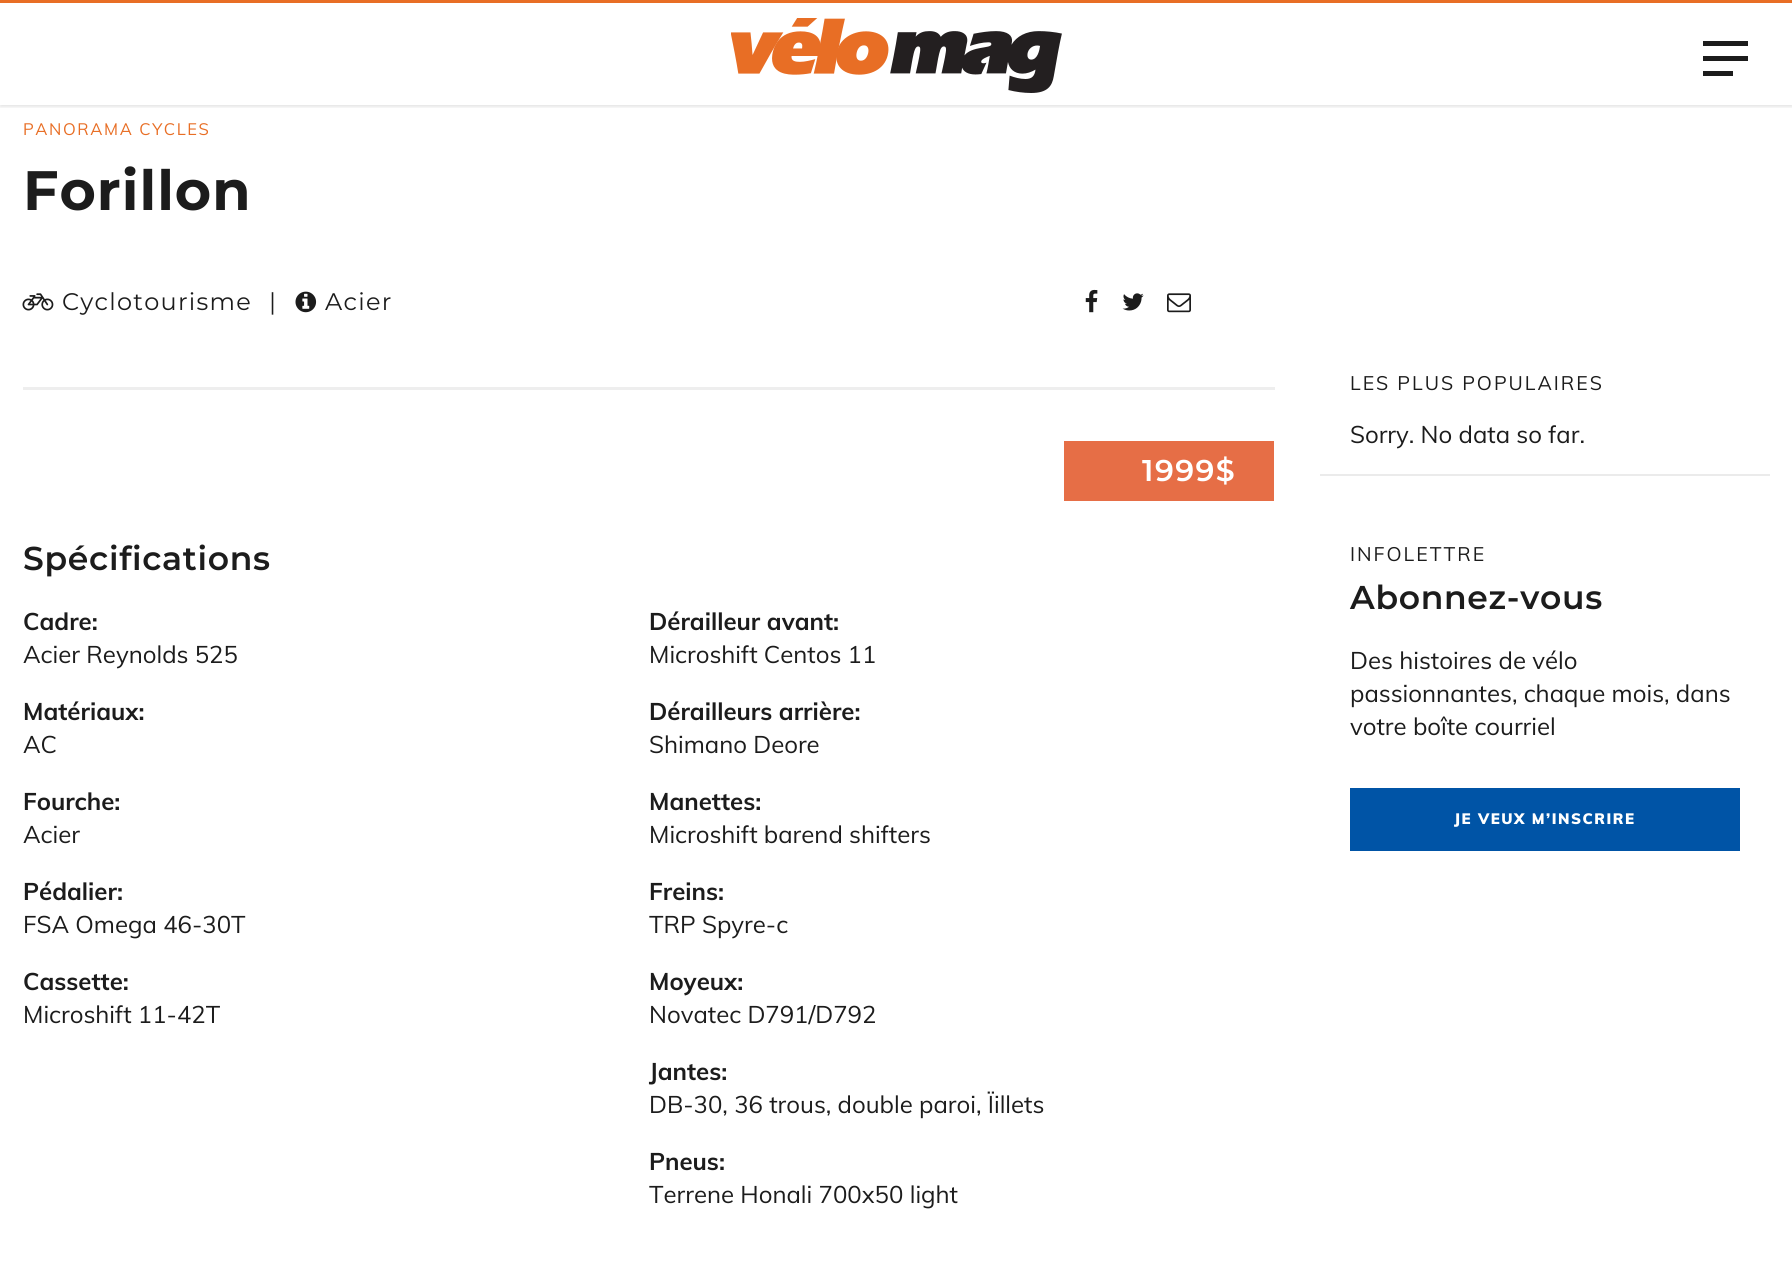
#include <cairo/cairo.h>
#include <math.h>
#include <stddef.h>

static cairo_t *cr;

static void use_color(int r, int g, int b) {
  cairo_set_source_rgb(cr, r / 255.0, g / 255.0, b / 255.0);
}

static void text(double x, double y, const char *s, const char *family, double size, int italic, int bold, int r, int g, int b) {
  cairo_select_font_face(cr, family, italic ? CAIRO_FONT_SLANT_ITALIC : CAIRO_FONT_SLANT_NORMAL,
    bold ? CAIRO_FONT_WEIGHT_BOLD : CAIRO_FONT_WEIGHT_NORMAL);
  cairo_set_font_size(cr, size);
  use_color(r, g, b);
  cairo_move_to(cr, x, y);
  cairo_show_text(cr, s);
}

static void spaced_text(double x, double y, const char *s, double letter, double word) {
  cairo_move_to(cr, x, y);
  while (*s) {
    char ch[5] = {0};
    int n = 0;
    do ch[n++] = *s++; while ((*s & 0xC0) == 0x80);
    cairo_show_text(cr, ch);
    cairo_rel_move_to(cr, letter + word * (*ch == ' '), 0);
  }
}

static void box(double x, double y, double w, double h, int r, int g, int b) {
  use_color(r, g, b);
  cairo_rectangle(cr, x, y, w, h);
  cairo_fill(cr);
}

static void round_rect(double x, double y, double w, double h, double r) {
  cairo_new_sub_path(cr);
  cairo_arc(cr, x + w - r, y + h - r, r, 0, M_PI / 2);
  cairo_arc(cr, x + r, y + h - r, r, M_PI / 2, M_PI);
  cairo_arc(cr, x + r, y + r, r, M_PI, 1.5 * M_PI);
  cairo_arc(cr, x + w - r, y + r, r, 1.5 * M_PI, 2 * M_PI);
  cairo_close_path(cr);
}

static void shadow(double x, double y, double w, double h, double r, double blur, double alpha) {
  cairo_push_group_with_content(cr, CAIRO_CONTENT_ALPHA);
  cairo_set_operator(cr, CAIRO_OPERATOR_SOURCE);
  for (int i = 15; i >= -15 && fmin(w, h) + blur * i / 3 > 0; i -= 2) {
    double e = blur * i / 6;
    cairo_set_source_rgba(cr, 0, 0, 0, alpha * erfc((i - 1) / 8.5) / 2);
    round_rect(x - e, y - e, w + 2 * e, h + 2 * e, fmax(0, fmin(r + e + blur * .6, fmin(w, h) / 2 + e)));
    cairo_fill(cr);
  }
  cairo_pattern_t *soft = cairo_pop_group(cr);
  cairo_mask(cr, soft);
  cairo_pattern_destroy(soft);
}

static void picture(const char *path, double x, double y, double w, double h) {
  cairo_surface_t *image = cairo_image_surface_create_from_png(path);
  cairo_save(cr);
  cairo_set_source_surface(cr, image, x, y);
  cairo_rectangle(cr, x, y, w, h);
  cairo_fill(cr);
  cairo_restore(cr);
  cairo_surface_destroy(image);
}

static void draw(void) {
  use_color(255, 255, 255);
  cairo_paint(cr);
  cairo_save(cr);
  cairo_rectangle(cr, 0, 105, 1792, 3);
  cairo_clip(cr);
  use_color(0, 0, 0);
  shadow(0, 2, 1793, 105, 0, 1.5, 0.1);
  cairo_restore(cr);
  box(0, 0, 1792, 3, 232, 110, 37);
  picture("img_01.png", 731, 18, 331, 75);
  box(1703, 41, 45, 5, 28, 28, 28);
  box(1703, 56, 45, 5, 28, 28, 28);
  box(1703, 71, 30, 5, 28, 28, 28);
  picture("img_02.png", 22, 293, 32, 18);
  picture("img_03.png", 295, 291, 22, 22);
  picture("img_04.png", 1085, 289, 13, 24);
  picture("img_05.png", 1122, 293, 22, 18);
  picture("img_06.png", 1167, 293, 24, 20);
  box(23, 387, 1252, 3, 238, 238, 238);
  box(1064, 441, 210, 60, 230, 110, 70);
  box(1320, 474, 450, 2, 235, 235, 235);
  box(1350, 788, 390, 63, 0, 84, 166);
  cairo_select_font_face(cr, "Muli", CAIRO_FONT_SLANT_NORMAL, CAIRO_FONT_WEIGHT_NORMAL);
  cairo_set_font_size(cr, 16.5);
  use_color(232, 110, 37);
  spaced_text(23, 135, "PANORAMA CYCLES", 1.6, 0);
  cairo_select_font_face(cr, "Montserrat", CAIRO_FONT_SLANT_NORMAL, CAIRO_FONT_WEIGHT_BOLD);
  cairo_set_font_size(cr, 55.5);
  use_color(28, 28, 28);
  spaced_text(23, 210, "Forillon", 1, 0);
  cairo_select_font_face(cr, "Montserrat", CAIRO_FONT_SLANT_NORMAL, CAIRO_FONT_WEIGHT_NORMAL);
  cairo_set_font_size(cr, 24);
  spaced_text(62, 310, "Cyclotourisme", 1.25, 0);
  spaced_text(269, 310, "|", 1.25, 0);
  spaced_text(325, 310, "Acier", 1.25, 0);
  cairo_select_font_face(cr, "Montserrat SemiBold", CAIRO_FONT_SLANT_NORMAL, CAIRO_FONT_WEIGHT_NORMAL);
  cairo_set_font_size(cr, 30);
  use_color(255, 255, 255);
  spaced_text(1142, 481, "1999$", 1.5, 0);
  cairo_set_font_size(cr, 33);
  use_color(28, 28, 28);
  spaced_text(23, 570, "Spécifications", 0.7, 0);
  text(23, 630, "Cadre:", "Muli", 24, 0, 1, 28, 28, 28);
  text(23, 663, "Acier Reynolds 525", "Muli", 24, 0, 0, 28, 28, 28);
  text(23, 720, "Matériaux:", "Muli", 24, 0, 1, 28, 28, 28);
  text(23, 753, "AC", "Muli", 24, 0, 0, 28, 28, 28);
  text(23, 810, "Fourche:", "Muli", 24, 0, 1, 28, 28, 28);
  text(23, 843, "Acier", "Muli", 24, 0, 0, 28, 28, 28);
  text(23, 900, "Pédalier:", "Muli", 24, 0, 1, 28, 28, 28);
  text(23, 933, "FSA Omega 46-30T", "Muli", 24, 0, 0, 28, 28, 28);
  text(23, 990, "Cassette:", "Muli", 24, 0, 1, 28, 28, 28);
  text(23, 1023, "Microshift 11-42T", "Muli", 24, 0, 0, 28, 28, 28);
  text(649, 630, "Dérailleur avant:", "Muli", 24, 0, 1, 28, 28, 28);
  text(649, 663, "Microshift Centos 11", "Muli", 24, 0, 0, 28, 28, 28);
  text(649, 720, "Dérailleurs arrière:", "Muli", 24, 0, 1, 28, 28, 28);
  text(649, 753, "Shimano Deore", "Muli", 24, 0, 0, 28, 28, 28);
  text(649, 810, "Manettes:", "Muli", 24, 0, 1, 28, 28, 28);
  text(649, 843, "Microshift barend shifters", "Muli", 24, 0, 0, 28, 28, 28);
  text(649, 900, "Freins:", "Muli", 24, 0, 1, 28, 28, 28);
  text(649, 933, "TRP Spyre-c", "Muli", 24, 0, 0, 28, 28, 28);
  text(649, 990, "Moyeux:", "Muli", 24, 0, 1, 28, 28, 28);
  text(649, 1023, "Novatec D791/D792", "Muli", 24, 0, 0, 28, 28, 28);
  text(649, 1080, "Jantes:", "Muli", 24, 0, 1, 28, 28, 28);
  text(649, 1113, "DB-30, 36 trous, double paroi, Ïillets", "Muli", 24, 0, 0, 28, 28, 28);
  text(649, 1170, "Pneus:", "Muli", 24, 0, 1, 28, 28, 28);
  text(649, 1203, "Terrene Honali 700x50 light", "Muli", 24, 0, 0, 28, 28, 28);
  cairo_set_font_size(cr, 19.5);
  spaced_text(1350, 390, "LES PLUS POPULAIRES", 2, 0);
  text(1350, 443, "Sorry. No data so far.", "Muli", 24, 0, 0, 28, 28, 28);
  cairo_set_font_size(cr, 19.5);
  spaced_text(1350, 561, "INFOLETTRE", 2, 0);
  cairo_select_font_face(cr, "Montserrat SemiBold", CAIRO_FONT_SLANT_NORMAL, CAIRO_FONT_WEIGHT_NORMAL);
  cairo_set_font_size(cr, 33);
  spaced_text(1350, 609, "Abonnez-vous", 0.7, 0);
  text(1350, 669, "Des histoires de vélo", "Muli", 24, 0, 0, 28, 28, 28);
  text(1350, 702, "passionnantes, chaque mois, dans", "Muli", 24, 0, 0, 28, 28, 28);
  text(1350, 735, "votre boîte courriel", "Muli", 24, 0, 0, 28, 28, 28);
  cairo_select_font_face(cr, "Muli Black", CAIRO_FONT_SLANT_NORMAL, CAIRO_FONT_WEIGHT_NORMAL);
  cairo_set_font_size(cr, 15);
  use_color(255, 255, 255);
  spaced_text(1454, 824, "JE VEUX M’INSCRIRE", 1.5, 0);
}

int main(void) {
  cairo_surface_t *surface = cairo_image_surface_create(CAIRO_FORMAT_RGB24, 1792, 1265);
  cr = cairo_create(surface);
  cairo_font_options_t *options = cairo_font_options_create();
  cairo_font_options_set_hint_metrics(options, CAIRO_HINT_METRICS_OFF);
  cairo_font_options_set_hint_style(options, CAIRO_HINT_STYLE_NONE);
  cairo_set_font_options(cr, options);
  cairo_set_miter_limit(cr, 4);
  draw();
  cairo_surface_write_to_png(surface, "out.png");
  cairo_font_options_destroy(options);
  cairo_destroy(cr);
  cairo_surface_destroy(surface);
  return 0;
}
